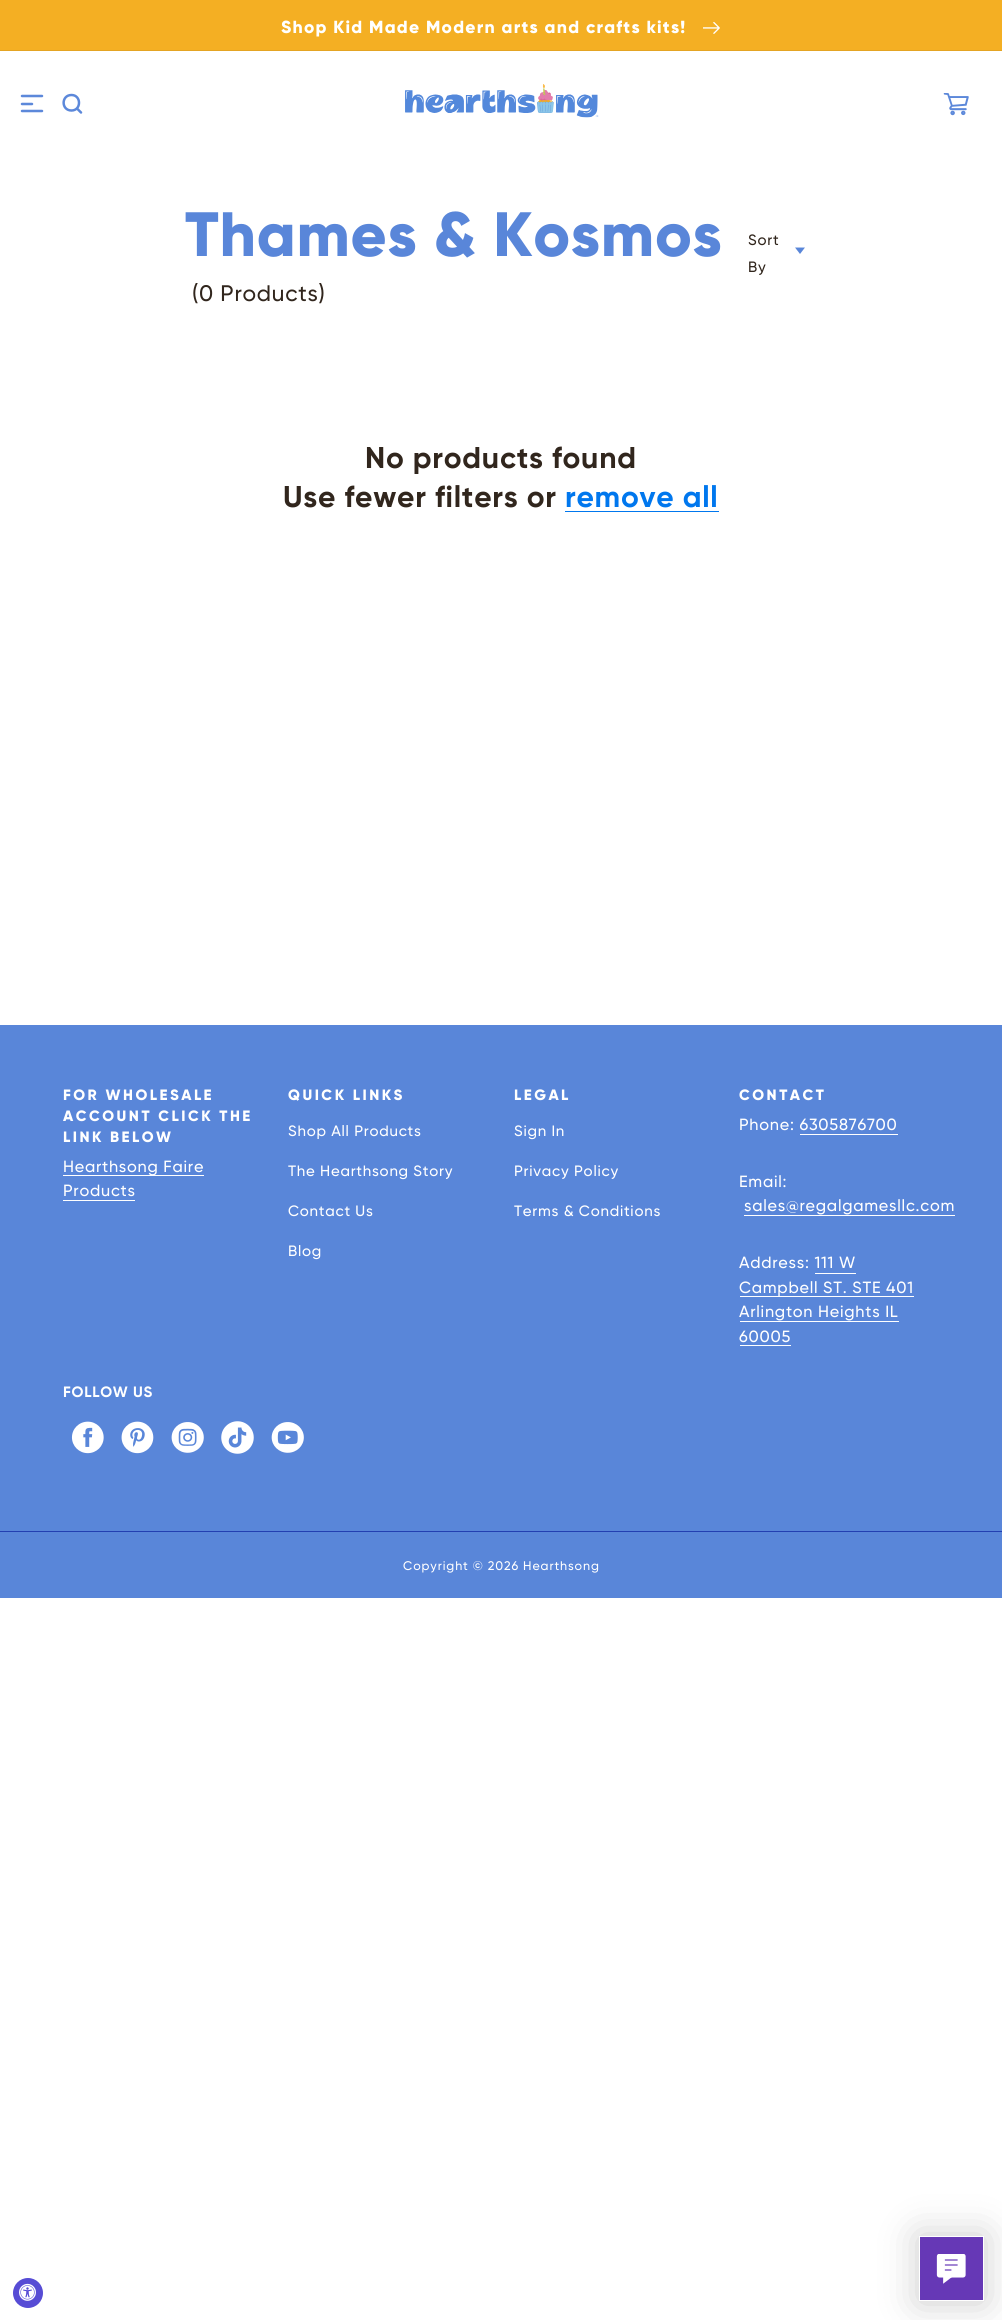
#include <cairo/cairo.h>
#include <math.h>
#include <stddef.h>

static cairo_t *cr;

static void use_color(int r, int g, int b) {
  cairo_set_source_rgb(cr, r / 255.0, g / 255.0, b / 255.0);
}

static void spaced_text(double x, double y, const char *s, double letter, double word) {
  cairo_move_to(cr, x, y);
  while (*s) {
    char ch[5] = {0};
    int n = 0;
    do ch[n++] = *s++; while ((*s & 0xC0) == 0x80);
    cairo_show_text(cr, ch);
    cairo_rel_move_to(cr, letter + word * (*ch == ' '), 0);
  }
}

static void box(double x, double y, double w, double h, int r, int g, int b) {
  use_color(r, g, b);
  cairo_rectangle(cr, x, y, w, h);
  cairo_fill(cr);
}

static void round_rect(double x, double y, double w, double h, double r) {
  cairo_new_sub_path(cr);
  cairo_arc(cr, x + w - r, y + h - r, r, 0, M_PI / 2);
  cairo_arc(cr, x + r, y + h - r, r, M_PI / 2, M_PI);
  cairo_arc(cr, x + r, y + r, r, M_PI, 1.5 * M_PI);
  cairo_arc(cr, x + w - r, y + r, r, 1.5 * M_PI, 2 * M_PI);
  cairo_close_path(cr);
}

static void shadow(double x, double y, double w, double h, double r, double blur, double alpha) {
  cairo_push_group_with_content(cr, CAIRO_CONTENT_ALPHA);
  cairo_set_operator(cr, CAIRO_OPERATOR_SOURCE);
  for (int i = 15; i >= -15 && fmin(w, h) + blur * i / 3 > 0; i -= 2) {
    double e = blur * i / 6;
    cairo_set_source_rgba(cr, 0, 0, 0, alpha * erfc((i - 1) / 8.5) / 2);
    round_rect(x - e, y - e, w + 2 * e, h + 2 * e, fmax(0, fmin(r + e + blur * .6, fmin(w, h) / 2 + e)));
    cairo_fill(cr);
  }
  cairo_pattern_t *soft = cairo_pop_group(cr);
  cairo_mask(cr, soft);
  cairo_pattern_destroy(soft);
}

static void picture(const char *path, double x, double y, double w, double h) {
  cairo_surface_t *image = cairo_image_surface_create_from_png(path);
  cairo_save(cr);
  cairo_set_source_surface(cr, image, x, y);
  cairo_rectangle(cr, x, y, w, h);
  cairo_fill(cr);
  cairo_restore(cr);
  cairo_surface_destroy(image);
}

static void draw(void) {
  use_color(255, 255, 255);
  cairo_paint(cr);
  box(0, 0, 1002, 50, 244, 175, 35);
  box(0, 50, 1002, 1, 228, 164, 35);
  picture("img_01.png", 703, 21, 17, 13);
  cairo_new_path(cr);
  cairo_move_to(cr, 71.5, 110.5);
  cairo_curve_to(cr, 81.5, 110.5, 81.5, 95, 71.5, 95);
  cairo_curve_to(cr, 61, 95, 61, 110.5, 71.5, 110.5);
  cairo_close_path(cr);
  cairo_move_to(cr, 81, 112.5);
  cairo_line_to(cr, 77, 108.5);
  cairo_move_to(cr, 22, 111);
  cairo_line_to(cr, 42, 111);
  cairo_move_to(cr, 22, 96);
  cairo_line_to(cr, 42, 96);
  cairo_close_path(cr);
  cairo_move_to(cr, 22, 104);
  cairo_line_to(cr, 32, 104);
  cairo_close_path(cr);
  use_color(92, 136, 218);
  cairo_set_line_width(cr, 2.5);
  cairo_set_line_cap(cr, CAIRO_LINE_CAP_ROUND);
  cairo_set_line_join(cr, CAIRO_LINE_JOIN_ROUND);
  cairo_stroke(cr);
  picture("img_02.png", 405, 84, 194, 34);
  picture("img_03.png", 943, 93, 26, 23);
  use_color(89, 134, 217);
  cairo_new_path(cr);
  cairo_move_to(cr, 795, 247.5);
  cairo_line_to(cr, 805, 247.5);
  cairo_line_to(cr, 800, 254);
  cairo_close_path(cr);
  cairo_fill(cr);
  box(565, 511, 154, 1, 0, 119, 238);
  box(0, 1025, 1002, 573, 89, 134, 217);
  box(63, 1175, 141, 1, 255, 255, 255);
  box(63, 1200, 72, 1, 255, 255, 255);
  box(800, 1134, 98, 1, 255, 255, 255);
  box(744, 1215, 211, 1, 255, 255, 255);
  box(815, 1273, 41, 1, 255, 255, 255);
  box(740, 1296, 174, 1, 255, 255, 255);
  box(740, 1321, 159, 1, 255, 255, 255);
  box(740, 1345, 51, 1, 255, 255, 255);
  picture("img_04.png", 71, 1421, 33, 33);
  picture("img_05.png", 121, 1421, 33, 33);
  picture("img_06.png", 171, 1422, 33, 31);
  picture("img_07.png", 221, 1421, 33, 33);
  picture("img_08.png", 271, 1422, 33, 31);
  box(0, 1531, 1002, 1, 35, 63, 177);
  use_color(87, 76, 213);
  cairo_arc(cr, 28, 2293, 15, 0, 2 * M_PI);
  cairo_fill(cr);
  picture("img_09.png", 19, 2283, 17, 18);
  use_color(0, 0, 0);
  shadow(918, 2235, 67, 68, 0, 19, 0.2);
  use_color(102, 56, 182);
  cairo_rectangle(cr, 919.5, 2236.5, 64, 64);
  cairo_fill_preserve(cr);
  use_color(255, 255, 255);
  cairo_set_line_width(cr, 1);
  cairo_set_line_cap(cr, CAIRO_LINE_CAP_BUTT);
  cairo_set_line_join(cr, CAIRO_LINE_JOIN_MITER);
  cairo_stroke(cr);
  picture("img_10.png", 936, 2254, 30, 30);
  cairo_select_font_face(cr, "Gilroy ExtraBold", CAIRO_FONT_SLANT_NORMAL, CAIRO_FONT_WEIGHT_NORMAL);
  cairo_set_font_size(cr, 17.5);
  spaced_text(281, 33, "Shop Kid Made Modern arts and crafts kits!", 1.25, 0);
  cairo_set_font_size(cr, 62.5);
  use_color(89, 134, 217);
  spaced_text(185, 256, "Thames & Kosmos", 0.75, 0);
  cairo_select_font_face(cr, "Gilroy Medium", CAIRO_FONT_SLANT_NORMAL, CAIRO_FONT_WEIGHT_NORMAL);
  cairo_set_font_size(cr, 22.5);
  use_color(49, 38, 29);
  spaced_text(192, 301, "(0 Products)", 0.75, 0);
  cairo_set_font_size(cr, 15);
  spaced_text(748, 245, "Sort", 0.75, 0);
  spaced_text(748, 272, "By", 0.75, 0);
  cairo_select_font_face(cr, "Gilroy", CAIRO_FONT_SLANT_NORMAL, CAIRO_FONT_WEIGHT_BOLD);
  cairo_set_font_size(cr, 30);
  spaced_text(365, 468, "No products found", 0.75, 0);
  spaced_text(283, 507, "Use fewer filters or", 0.75, 0);
  use_color(0, 119, 238);
  spaced_text(565, 507, "remove all", 0.75, 0);
  cairo_select_font_face(cr, "Gilroy ExtraBold", CAIRO_FONT_SLANT_NORMAL, CAIRO_FONT_WEIGHT_NORMAL);
  cairo_set_font_size(cr, 15);
  use_color(255, 255, 255);
  spaced_text(63, 1100, "FOR WHOLESALE", 2.5, 0);
  spaced_text(63, 1121, "ACCOUNT CLICK THE", 2.5, 0);
  spaced_text(63, 1142, "LINK BELOW", 2.5, 0);
  cairo_select_font_face(cr, "Gilroy Medium", CAIRO_FONT_SLANT_NORMAL, CAIRO_FONT_WEIGHT_NORMAL);
  cairo_set_font_size(cr, 16.25);
  spaced_text(63, 1172, "Hearthsong Faire", 0.75, 0);
  spaced_text(63, 1196, "Products", 0.75, 0);
  cairo_select_font_face(cr, "Gilroy ExtraBold", CAIRO_FONT_SLANT_NORMAL, CAIRO_FONT_WEIGHT_NORMAL);
  cairo_set_font_size(cr, 15);
  spaced_text(288, 1100, "QUICK LINKS", 2.5, 0);
  cairo_select_font_face(cr, "Gilroy Medium", CAIRO_FONT_SLANT_NORMAL, CAIRO_FONT_WEIGHT_NORMAL);
  spaced_text(288, 1136, "Shop All Products", 0.75, 0);
  spaced_text(288, 1176, "The Hearthsong Story", 0.75, 0);
  spaced_text(288, 1216, "Contact Us", 0.75, 0);
  spaced_text(288, 1256, "Blog", 0.75, 0);
  cairo_select_font_face(cr, "Gilroy ExtraBold", CAIRO_FONT_SLANT_NORMAL, CAIRO_FONT_WEIGHT_NORMAL);
  spaced_text(514, 1100, "LEGAL", 2.5, 0);
  cairo_select_font_face(cr, "Gilroy Medium", CAIRO_FONT_SLANT_NORMAL, CAIRO_FONT_WEIGHT_NORMAL);
  spaced_text(514, 1136, "Sign In", 0.75, 0);
  spaced_text(514, 1176, "Privacy Policy", 0.75, 0);
  spaced_text(514, 1216, "Terms & Conditions", 0.75, 0);
  cairo_select_font_face(cr, "Gilroy ExtraBold", CAIRO_FONT_SLANT_NORMAL, CAIRO_FONT_WEIGHT_NORMAL);
  spaced_text(739, 1100, "CONTACT", 2.5, 0);
  cairo_select_font_face(cr, "Gilroy Medium", CAIRO_FONT_SLANT_NORMAL, CAIRO_FONT_WEIGHT_NORMAL);
  cairo_set_font_size(cr, 16.25);
  spaced_text(739, 1130, "Phone: 6305876700", 0.75, 0);
  spaced_text(739, 1187, "Email:", 0.75, 0);
  spaced_text(744, 1211, "sales@regalgamesllc.com", 0.75, 0);
  spaced_text(739, 1268, "Address: 111 W", 0.75, 0);
  spaced_text(739, 1293, "Campbell ST. STE 401", 0.75, 0);
  spaced_text(739, 1317, "Arlington Heights IL", 0.75, 0);
  spaced_text(739, 1342, "60005", 0.75, 0);
  cairo_select_font_face(cr, "Gilroy", CAIRO_FONT_SLANT_NORMAL, CAIRO_FONT_WEIGHT_BOLD);
  cairo_set_font_size(cr, 15);
  spaced_text(63, 1397, "FOLLOW US", 0.75, 0);
  cairo_select_font_face(cr, "Gilroy Medium", CAIRO_FONT_SLANT_NORMAL, CAIRO_FONT_WEIGHT_NORMAL);
  cairo_set_font_size(cr, 12.5);
  spaced_text(403, 1570, "Copyright © 2026 Hearthsong", 0.9, 0);
}

int main(void) {
  cairo_surface_t *surface = cairo_image_surface_create(CAIRO_FORMAT_RGB24, 1002, 2320);
  cr = cairo_create(surface);
  cairo_font_options_t *options = cairo_font_options_create();
  cairo_font_options_set_hint_metrics(options, CAIRO_HINT_METRICS_OFF);
  cairo_font_options_set_hint_style(options, CAIRO_HINT_STYLE_NONE);
  cairo_set_font_options(cr, options);
  cairo_set_miter_limit(cr, 4);
  draw();
  cairo_surface_write_to_png(surface, "out.png");
  cairo_font_options_destroy(options);
  cairo_destroy(cr);
  cairo_surface_destroy(surface);
  return 0;
}
